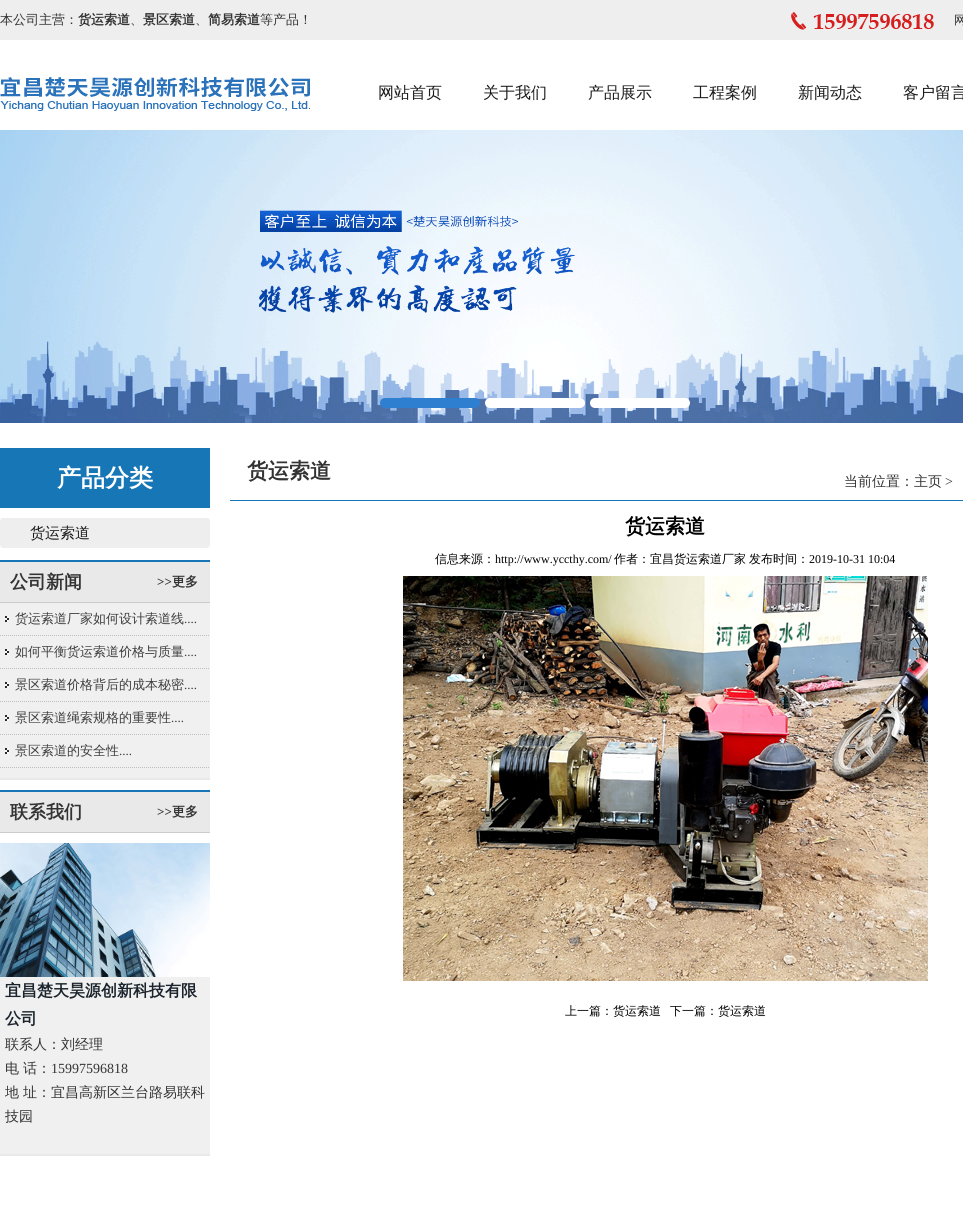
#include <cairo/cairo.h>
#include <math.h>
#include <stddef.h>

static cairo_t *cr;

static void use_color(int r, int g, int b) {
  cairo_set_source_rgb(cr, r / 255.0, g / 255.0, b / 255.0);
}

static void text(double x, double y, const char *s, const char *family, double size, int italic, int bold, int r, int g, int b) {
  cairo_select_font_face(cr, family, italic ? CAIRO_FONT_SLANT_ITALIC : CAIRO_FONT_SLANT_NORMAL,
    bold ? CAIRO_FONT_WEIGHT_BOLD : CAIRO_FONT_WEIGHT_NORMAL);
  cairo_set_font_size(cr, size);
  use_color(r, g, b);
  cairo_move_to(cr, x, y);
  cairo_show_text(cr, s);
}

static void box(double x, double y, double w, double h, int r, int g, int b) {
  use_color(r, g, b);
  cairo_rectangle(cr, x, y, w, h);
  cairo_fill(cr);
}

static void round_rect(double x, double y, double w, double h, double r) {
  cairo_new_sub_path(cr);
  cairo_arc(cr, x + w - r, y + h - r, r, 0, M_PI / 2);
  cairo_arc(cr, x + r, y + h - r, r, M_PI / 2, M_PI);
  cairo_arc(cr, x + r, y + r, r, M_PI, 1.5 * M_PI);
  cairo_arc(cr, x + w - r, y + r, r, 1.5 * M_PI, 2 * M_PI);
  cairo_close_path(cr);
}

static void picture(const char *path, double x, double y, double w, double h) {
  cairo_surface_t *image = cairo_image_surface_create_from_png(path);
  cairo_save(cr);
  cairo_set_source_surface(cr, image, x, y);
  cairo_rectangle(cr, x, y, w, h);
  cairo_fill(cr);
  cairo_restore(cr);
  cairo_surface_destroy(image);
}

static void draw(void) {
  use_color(255, 255, 255);
  cairo_paint(cr);
  box(0, 0, 963, 40, 238, 238, 238);
  picture("img_01.png", 791, 12, 143, 18);
  picture("img_02.png", 0, 77, 310, 34);
  picture("img_03.png", 0, 130, 963, 293);
  use_color(46, 127, 208);
  round_rect(380, 398, 100, 10, 5);
  cairo_fill(cr);
  use_color(255, 255, 255);
  round_rect(485, 398, 100, 10, 5);
  cairo_fill(cr);
  round_rect(590, 398, 100, 10, 5);
  cairo_fill(cr);
  box(0, 448, 210, 60, 23, 118, 182);
  use_color(238, 238, 238);
  round_rect(0, 518, 210, 30, 3);
  cairo_fill(cr);
  box(0, 560, 210, 2, 23, 118, 182);
  box(0, 562, 210, 40, 233, 233, 233);
  box(0, 602, 210, 1, 204, 204, 204);
  box(0, 603, 210, 175, 240, 240, 240);
  box(0, 778, 210, 2, 233, 233, 233);
  picture("img_04.png", 5, 616, 4, 6);
  cairo_save(cr);
  cairo_rectangle(cr, 0, 423, 210, 733);
  cairo_clip(cr);
  cairo_new_path(cr);
  cairo_move_to(cr, 0, 635.5);
  cairo_line_to(cr, 221, 635.5);
  use_color(191, 191, 191);
  cairo_set_line_width(cr, 1);
  cairo_set_dash(cr, (double[]){1, 1}, 2, 0);
  cairo_stroke(cr);
  cairo_restore(cr);
  picture("img_04.png", 5, 649, 4, 6);
  cairo_save(cr);
  cairo_rectangle(cr, 0, 423, 210, 733);
  cairo_clip(cr);
  cairo_new_path(cr);
  cairo_move_to(cr, 0, 668.5);
  cairo_line_to(cr, 221, 668.5);
  use_color(191, 191, 191);
  cairo_set_line_width(cr, 1);
  cairo_set_dash(cr, (double[]){1, 1}, 2, 0);
  cairo_stroke(cr);
  cairo_restore(cr);
  picture("img_04.png", 5, 682, 4, 6);
  cairo_save(cr);
  cairo_rectangle(cr, 0, 423, 210, 733);
  cairo_clip(cr);
  cairo_new_path(cr);
  cairo_move_to(cr, 0, 701.5);
  cairo_line_to(cr, 221, 701.5);
  use_color(191, 191, 191);
  cairo_set_line_width(cr, 1);
  cairo_set_dash(cr, (double[]){1, 1}, 2, 0);
  cairo_stroke(cr);
  cairo_restore(cr);
  picture("img_04.png", 5, 715, 4, 6);
  cairo_save(cr);
  cairo_rectangle(cr, 0, 423, 210, 733);
  cairo_clip(cr);
  cairo_new_path(cr);
  cairo_move_to(cr, 0, 734.5);
  cairo_line_to(cr, 221, 734.5);
  use_color(191, 191, 191);
  cairo_set_line_width(cr, 1);
  cairo_set_dash(cr, (double[]){1, 1}, 2, 0);
  cairo_stroke(cr);
  cairo_restore(cr);
  picture("img_04.png", 5, 748, 4, 6);
  cairo_save(cr);
  cairo_rectangle(cr, 0, 423, 210, 733);
  cairo_clip(cr);
  cairo_new_path(cr);
  cairo_move_to(cr, 0, 767.5);
  cairo_line_to(cr, 221, 767.5);
  use_color(191, 191, 191);
  cairo_set_line_width(cr, 1);
  cairo_set_dash(cr, (double[]){1, 1}, 2, 0);
  cairo_stroke(cr);
  cairo_restore(cr);
  box(0, 790, 210, 2, 23, 118, 182);
  box(0, 792, 210, 40, 233, 233, 233);
  box(0, 832, 210, 1, 204, 204, 204);
  box(0, 977, 210, 177, 240, 240, 240);
  box(0, 1154, 210, 2, 233, 233, 233);
  picture("img_05.png", 0, 843, 210, 134);
  box(230, 500, 733, 1, 23, 118, 182);
  picture("img_06.png", 403, 576, 525, 405);
  text(0, 24, "本公司主营：", "WenQuanYi Zen Hei Medium", 13, 0, 0, 51, 51, 51);
  text(78, 24, "货运索道", "WenQuanYi Zen Hei", 13, 0, 1, 51, 51, 51);
  text(130, 24, "、", "WenQuanYi Zen Hei Medium", 13, 0, 0, 51, 51, 51);
  text(143, 24, "景区索道", "WenQuanYi Zen Hei", 13, 0, 1, 51, 51, 51);
  text(195, 24, "、", "WenQuanYi Zen Hei Medium", 13, 0, 0, 51, 51, 51);
  text(208, 24, "简易索道", "WenQuanYi Zen Hei", 13, 0, 1, 51, 51, 51);
  text(260, 24, "等产品！", "WenQuanYi Zen Hei Medium", 13, 0, 0, 51, 51, 51);
  text(954, 24, "网", "WenQuanYi Zen Hei Medium", 12, 0, 0, 51, 51, 51);
  text(378, 98, "网站首页", "WenQuanYi Zen Hei Medium", 16, 0, 0, 26, 26, 26);
  text(483, 98, "关于我们", "WenQuanYi Zen Hei Medium", 16, 0, 0, 26, 26, 26);
  text(588, 98, "产品展示", "WenQuanYi Zen Hei Medium", 16, 0, 0, 26, 26, 26);
  text(693, 98, "工程案例", "WenQuanYi Zen Hei Medium", 16, 0, 0, 26, 26, 26);
  text(798, 98, "新闻动态", "WenQuanYi Zen Hei Medium", 16, 0, 0, 26, 26, 26);
  text(903, 98, "客户留言", "WenQuanYi Zen Hei Medium", 16, 0, 0, 26, 26, 26);
  text(57, 486, "产品分类", "WenQuanYi Zen Hei", 24, 0, 1, 255, 255, 255);
  text(30, 538, "货运索道", "WenQuanYi Zen Hei Medium", 15, 0, 0, 26, 26, 26);
  text(10, 588, "公司新闻", "WenQuanYi Zen Hei", 18, 0, 1, 51, 51, 51);
  text(157, 586, ">>", "Liberation Serif", 13, 0, 1, 51, 51, 51);
  text(172, 586, "更多", "WenQuanYi Zen Hei", 13, 0, 1, 51, 51, 51);
  text(15, 623, "货运索道厂家如何设计索道线", "WenQuanYi Zen Hei Medium", 13, 0, 0, 62, 62, 62);
  text(184, 623, "....", "Liberation Serif", 13, 0, 0, 62, 62, 62);
  text(15, 656, "如何平衡货运索道价格与质量", "WenQuanYi Zen Hei Medium", 13, 0, 0, 62, 62, 62);
  text(184, 656, "....", "Liberation Serif", 13, 0, 0, 62, 62, 62);
  text(15, 689, "景区索道价格背后的成本秘密", "WenQuanYi Zen Hei Medium", 13, 0, 0, 62, 62, 62);
  text(184, 689, "....", "Liberation Serif", 13, 0, 0, 62, 62, 62);
  text(15, 722, "景区索道绳索规格的重要性", "WenQuanYi Zen Hei Medium", 13, 0, 0, 62, 62, 62);
  text(171, 722, "....", "Liberation Serif", 13, 0, 0, 62, 62, 62);
  text(15, 755, "景区索道的安全性", "WenQuanYi Zen Hei Medium", 13, 0, 0, 62, 62, 62);
  text(119, 755, "....", "Liberation Serif", 13, 0, 0, 62, 62, 62);
  text(10, 818, "联系我们", "WenQuanYi Zen Hei", 18, 0, 1, 51, 51, 51);
  text(157, 816, ">>", "Liberation Serif", 13, 0, 1, 51, 51, 51);
  text(172, 816, "更多", "WenQuanYi Zen Hei", 13, 0, 1, 51, 51, 51);
  text(5, 996, "宜昌楚天昊源创新科技有限", "WenQuanYi Zen Hei", 16, 0, 1, 27, 36, 45);
  text(5, 1024, "公司", "WenQuanYi Zen Hei", 16, 0, 1, 27, 36, 45);
  text(5, 1049, "联系人：刘经理", "WenQuanYi Zen Hei Medium", 14, 0, 0, 51, 51, 51);
  text(5, 1073, "电", "WenQuanYi Zen Hei Medium", 14, 0, 0, 51, 51, 51);
  text(23, 1073, "话：", "WenQuanYi Zen Hei Medium", 14, 0, 0, 51, 51, 51);
  text(51, 1073, "15997596818", "Liberation Serif", 14, 0, 0, 51, 51, 51);
  text(5, 1097, "地", "WenQuanYi Zen Hei Medium", 14, 0, 0, 51, 51, 51);
  text(23, 1097, "址：宜昌高新区兰台路易联科", "WenQuanYi Zen Hei Medium", 14, 0, 0, 51, 51, 51);
  text(5, 1121, "技园", "WenQuanYi Zen Hei Medium", 14, 0, 0, 51, 51, 51);
  text(247, 478, "货运索道", "WenQuanYi Zen Hei", 21, 0, 1, 51, 51, 51);
  text(844, 486, "当前位置：主页", "WenQuanYi Zen Hei Medium", 14, 0, 0, 51, 51, 51);
  text(945, 486, ">", "Liberation Serif", 14, 0, 0, 51, 51, 51);
  text(625, 533, "货运索道", "WenQuanYi Zen Hei", 20, 0, 1, 0, 0, 0);
  text(435, 563, "信息来源：", "WenQuanYi Zen Hei Medium", 12, 0, 0, 0, 0, 0);
  text(495, 563, "http://www.yccthy.com/", "Liberation Serif", 12, 0, 0, 0, 0, 0);
  text(614, 563, "作者：宜昌货运索道厂家", "WenQuanYi Zen Hei Medium", 12, 0, 0, 0, 0, 0);
  text(749, 563, "发布时间：", "WenQuanYi Zen Hei Medium", 12, 0, 0, 0, 0, 0);
  text(809, 563, "2019-10-31 10:04", "Liberation Serif", 12, 0, 0, 0, 0, 0);
  text(565, 1015, "上一篇：货运索道", "WenQuanYi Zen Hei Medium", 12, 0, 0, 0, 0, 0);
  text(670, 1015, "下一篇：货运索道", "WenQuanYi Zen Hei Medium", 12, 0, 0, 0, 0, 0);
}

int main(void) {
  cairo_surface_t *surface = cairo_image_surface_create(CAIRO_FORMAT_RGB24, 963, 1210);
  cr = cairo_create(surface);
  cairo_font_options_t *options = cairo_font_options_create();
  cairo_font_options_set_hint_metrics(options, CAIRO_HINT_METRICS_OFF);
  cairo_font_options_set_hint_style(options, CAIRO_HINT_STYLE_NONE);
  cairo_set_font_options(cr, options);
  cairo_set_miter_limit(cr, 4);
  draw();
  cairo_surface_write_to_png(surface, "out.png");
  cairo_font_options_destroy(options);
  cairo_destroy(cr);
  cairo_surface_destroy(surface);
  return 0;
}
